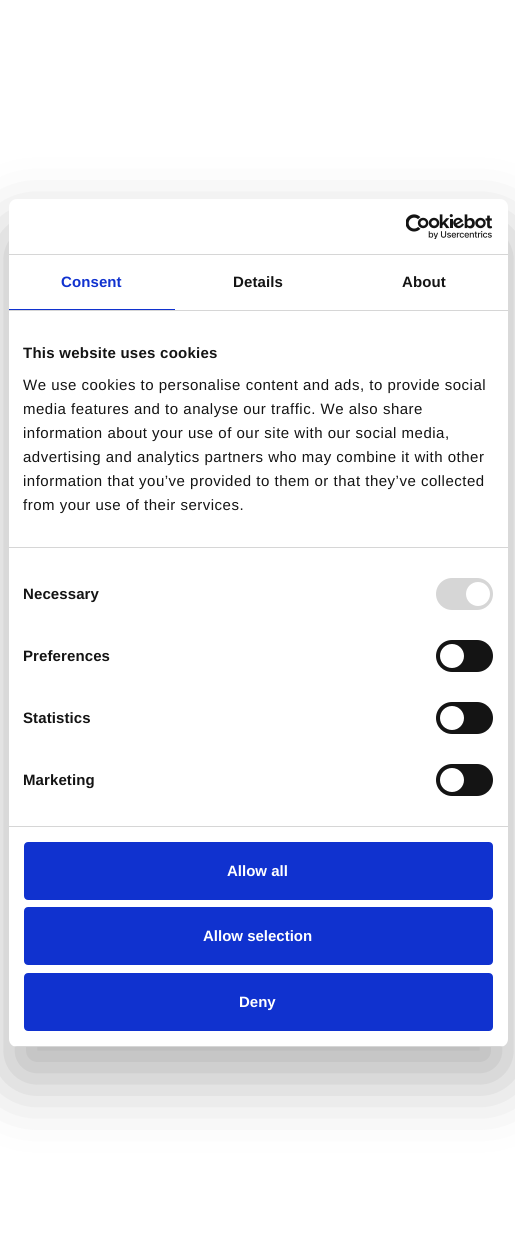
#include <cairo/cairo.h>
#include <math.h>
#include <stddef.h>

static cairo_t *cr;

static void use_color(int r, int g, int b) {
  cairo_set_source_rgb(cr, r / 255.0, g / 255.0, b / 255.0);
}

static void text(double x, double y, const char *s, const char *family, double size, int italic, int bold, int r, int g, int b) {
  cairo_select_font_face(cr, family, italic ? CAIRO_FONT_SLANT_ITALIC : CAIRO_FONT_SLANT_NORMAL,
    bold ? CAIRO_FONT_WEIGHT_BOLD : CAIRO_FONT_WEIGHT_NORMAL);
  cairo_set_font_size(cr, size);
  use_color(r, g, b);
  cairo_move_to(cr, x, y);
  cairo_show_text(cr, s);
}

static void spaced_text(double x, double y, const char *s, double letter, double word) {
  cairo_move_to(cr, x, y);
  while (*s) {
    char ch[5] = {0};
    int n = 0;
    do ch[n++] = *s++; while ((*s & 0xC0) == 0x80);
    cairo_show_text(cr, ch);
    cairo_rel_move_to(cr, letter + word * (*ch == ' '), 0);
  }
}

static void box(double x, double y, double w, double h, int r, int g, int b) {
  use_color(r, g, b);
  cairo_rectangle(cr, x, y, w, h);
  cairo_fill(cr);
}

static void round_rect(double x, double y, double w, double h, double r) {
  cairo_new_sub_path(cr);
  cairo_arc(cr, x + w - r, y + h - r, r, 0, M_PI / 2);
  cairo_arc(cr, x + r, y + h - r, r, M_PI / 2, M_PI);
  cairo_arc(cr, x + r, y + r, r, M_PI, 1.5 * M_PI);
  cairo_arc(cr, x + w - r, y + r, r, 1.5 * M_PI, 2 * M_PI);
  cairo_close_path(cr);
}

static void shadow(double x, double y, double w, double h, double r, double blur, double alpha) {
  cairo_push_group_with_content(cr, CAIRO_CONTENT_ALPHA);
  cairo_set_operator(cr, CAIRO_OPERATOR_SOURCE);
  for (int i = 15; i >= -15 && fmin(w, h) + blur * i / 3 > 0; i -= 2) {
    double e = blur * i / 6;
    cairo_set_source_rgba(cr, 0, 0, 0, alpha * erfc((i - 1) / 8.5) / 2);
    round_rect(x - e, y - e, w + 2 * e, h + 2 * e, fmax(0, fmin(r + e + blur * .6, fmin(w, h) / 2 + e)));
    cairo_fill(cr);
  }
  cairo_pattern_t *soft = cairo_pop_group(cr);
  cairo_mask(cr, soft);
  cairo_pattern_destroy(soft);
}

static void picture(const char *path, double x, double y, double w, double h) {
  cairo_surface_t *image = cairo_image_surface_create_from_png(path);
  cairo_save(cr);
  cairo_set_source_surface(cr, image, x, y);
  cairo_rectangle(cr, x, y, w, h);
  cairo_fill(cr);
  cairo_restore(cr);
  cairo_surface_destroy(image);
}

static void draw(void) {
  use_color(255, 255, 255);
  cairo_paint(cr);
  use_color(0, 0, 0);
  shadow(9, 231, 499, 848, 8, 34, 0.3);
  use_color(255, 255, 255);
  round_rect(9, 199, 499, 848, 8);
  cairo_fill(cr);
  box(9, 254, 499, 1, 214, 214, 214);
  picture("img_01.png", 406, 214, 87, 25);
  box(9, 310, 499, 1, 214, 214, 214);
  box(9, 309, 166, 1, 16, 50, 207);
  box(9, 547, 499, 1, 214, 214, 214);
  box(9, 826, 499, 1, 214, 214, 214);
  round_rect(436, 578, 57, 32, 16);
  cairo_fill(cr);
  use_color(255, 255, 255);
  cairo_arc(cr, 478, 594, 12, 0, 2 * M_PI);
  cairo_fill(cr);
  use_color(20, 20, 20);
  round_rect(436, 640, 57, 32, 16);
  cairo_fill(cr);
  use_color(255, 255, 255);
  cairo_arc(cr, 452, 656, 12, 0, 2 * M_PI);
  cairo_fill(cr);
  use_color(20, 20, 20);
  round_rect(436, 702, 57, 32, 16);
  cairo_fill(cr);
  use_color(255, 255, 255);
  cairo_arc(cr, 452, 718, 12, 0, 2 * M_PI);
  cairo_fill(cr);
  use_color(20, 20, 20);
  round_rect(436, 764, 57, 32, 16);
  cairo_fill(cr);
  use_color(255, 255, 255);
  cairo_arc(cr, 452, 780, 12, 0, 2 * M_PI);
  cairo_fill(cr);
  cairo_save(cr);
  round_rect(9, 199, 499, 848, 8);
  cairo_clip(cr);
  box(9, 1046, 499, 1, 214, 214, 214);
  cairo_restore(cr);
  use_color(16, 50, 207);
  round_rect(25, 843, 467, 56, 3);
  cairo_fill_preserve(cr);
  cairo_stroke(cr);
  round_rect(25, 908, 467, 56, 3);
  cairo_fill_preserve(cr);
  cairo_stroke(cr);
  round_rect(25, 974, 467, 56, 3);
  cairo_fill_preserve(cr);
  cairo_stroke(cr);
  cairo_select_font_face(cr, "Liberation Sans", CAIRO_FONT_SLANT_NORMAL, CAIRO_FONT_WEIGHT_BOLD);
  cairo_set_font_size(cr, 15);
  spaced_text(61, 287, "Consent", 0.1, 0);
  use_color(20, 20, 20);
  spaced_text(233, 287, "Details", 0.1, 0);
  spaced_text(402, 287, "About", 0.1, 0);
  spaced_text(23, 358, "This website uses cookies", 0.25, 0);
  cairo_select_font_face(cr, "Liberation Sans", CAIRO_FONT_SLANT_NORMAL, CAIRO_FONT_WEIGHT_NORMAL);
  spaced_text(23, 390, "We use cookies to personalise content and ads, to provide social", 0.5, 0);
  spaced_text(23, 414, "media features and to analyse our traffic. We also share", 0.5, 0);
  spaced_text(23, 438, "information about your use of our site with our social media,", 0.5, 0);
  spaced_text(23, 462, "advertising and analytics partners who may combine it with other", 0.5, 0);
  spaced_text(23, 486, "information that you’ve provided to them or that they’ve collected", 0.5, 0);
  spaced_text(23, 510, "from your use of their services.", 0.5, 0);
  cairo_select_font_face(cr, "Liberation Sans", CAIRO_FONT_SLANT_NORMAL, CAIRO_FONT_WEIGHT_BOLD);
  spaced_text(23, 599, "Necessary", 0.1, 0);
  spaced_text(23, 661, "Preferences", 0.1, 0);
  spaced_text(23, 723, "Statistics", 0.1, 0);
  spaced_text(23, 785, "Marketing", 0.1, 0);
  text(227, 876, "Allow all", "Liberation Sans", 15, 0, 1, 255, 255, 255);
  text(203, 941, "Allow selection", "Liberation Sans", 15, 0, 1, 255, 255, 255);
  text(239, 1007, "Deny", "Liberation Sans", 15, 0, 1, 255, 255, 255);
}

int main(void) {
  cairo_surface_t *surface = cairo_image_surface_create(CAIRO_FORMAT_RGB24, 515, 1245);
  cr = cairo_create(surface);
  cairo_font_options_t *options = cairo_font_options_create();
  cairo_font_options_set_hint_metrics(options, CAIRO_HINT_METRICS_OFF);
  cairo_font_options_set_hint_style(options, CAIRO_HINT_STYLE_NONE);
  cairo_set_font_options(cr, options);
  cairo_set_miter_limit(cr, 4);
  draw();
  cairo_surface_write_to_png(surface, "out.png");
  cairo_font_options_destroy(options);
  cairo_destroy(cr);
  cairo_surface_destroy(surface);
  return 0;
}
